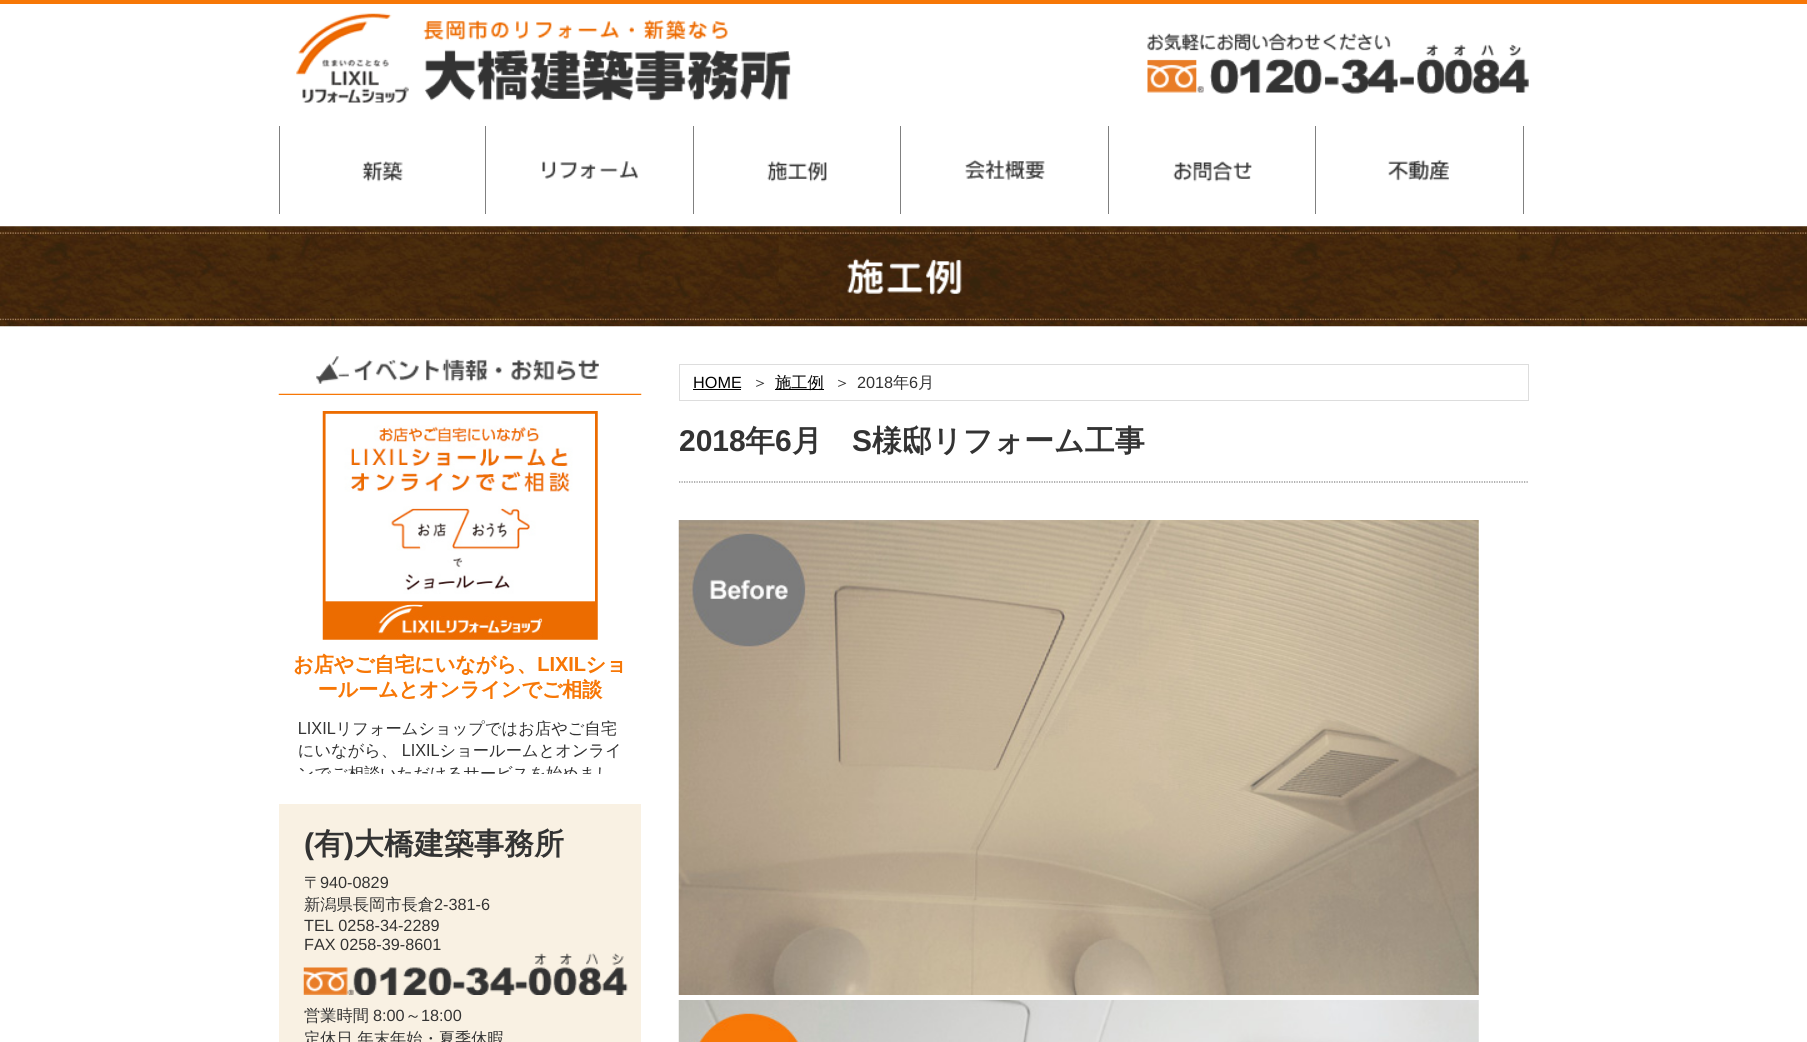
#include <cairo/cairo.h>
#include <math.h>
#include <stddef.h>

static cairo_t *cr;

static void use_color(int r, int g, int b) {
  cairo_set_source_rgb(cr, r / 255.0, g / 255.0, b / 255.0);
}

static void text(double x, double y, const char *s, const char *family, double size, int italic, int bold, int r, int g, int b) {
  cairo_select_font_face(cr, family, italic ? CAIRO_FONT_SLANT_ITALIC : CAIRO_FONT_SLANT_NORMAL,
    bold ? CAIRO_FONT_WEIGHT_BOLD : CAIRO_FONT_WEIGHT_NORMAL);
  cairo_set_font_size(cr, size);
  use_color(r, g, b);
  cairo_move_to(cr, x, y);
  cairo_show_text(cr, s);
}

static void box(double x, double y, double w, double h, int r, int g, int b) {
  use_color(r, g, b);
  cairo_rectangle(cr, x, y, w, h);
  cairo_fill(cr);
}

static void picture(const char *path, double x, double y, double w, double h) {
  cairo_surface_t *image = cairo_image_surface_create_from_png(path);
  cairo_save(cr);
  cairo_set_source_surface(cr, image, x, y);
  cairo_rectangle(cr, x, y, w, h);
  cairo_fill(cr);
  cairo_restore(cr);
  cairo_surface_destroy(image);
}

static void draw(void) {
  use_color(255, 255, 255);
  cairo_paint(cr);
  box(0, 0, 1807, 4, 247, 119, 6);
  picture("img_01.png", 1147, 33, 382, 61);
  picture("img_02.png", 296, 13, 495, 90);
  box(485, 126, 1, 88, 128, 128, 128);
  box(279, 126, 1, 88, 128, 128, 128);
  picture("img_03.png", 362, 161, 41, 21);
  box(693, 126, 1, 88, 128, 128, 128);
  picture("img_04.png", 542, 161, 97, 18);
  box(900, 126, 1, 88, 128, 128, 128);
  picture("img_05.png", 767, 161, 60, 21);
  box(1108, 126, 1, 88, 128, 128, 128);
  picture("img_06.png", 965, 159, 80, 22);
  box(1315, 126, 1, 88, 128, 128, 128);
  picture("img_07.png", 1173, 161, 79, 21);
  box(1523, 126, 1, 88, 128, 128, 128);
  picture("img_08.png", 1388, 159, 61, 22);
  picture("img_09.png", 0, 226, 1807, 101);
  picture("img_10.png", 847, 258, 115, 37);
  cairo_rectangle(cr, 679.5, 364.5, 849, 36);
  use_color(221, 221, 221);
  cairo_set_line_width(cr, 1);
  cairo_stroke(cr);
  box(693, 389, 48, 1, 0, 0, 0);
  box(775, 389, 49, 1, 0, 0, 0);
  cairo_new_path(cr);
  cairo_move_to(cr, 679, 482);
  cairo_line_to(cr, 1529, 482);
  use_color(128, 128, 128);
  cairo_set_line_width(cr, 1.2);
  cairo_set_dash(cr, (double[]){1.25, 1.25}, 2, 0);
  cairo_stroke(cr);
  picture("img_11.png", 678, 520, 801, 475);
  picture("img_12.png", 678, 1000, 801, 42);
  picture("img_13.png", 278, 356, 364, 39);
  picture("img_14.png", 294, 411, 329, 363);
  box(279, 804, 362, 238, 249, 241, 227);
  picture("img_15.png", 303, 953, 325, 42);
  text(693, 388, "HOME", "Liberation Sans", 16.25, 0, 0, 0, 0, 0);
  text(752, 388, "＞", "WenQuanYi Zen Hei Medium", 16.25, 0, 0, 51, 51, 51);
  text(775, 388, "施工例", "WenQuanYi Zen Hei Medium", 16.25, 0, 0, 0, 0, 0);
  text(834, 388, "＞", "WenQuanYi Zen Hei Medium", 16.25, 0, 0, 51, 51, 51);
  text(857, 388, "2018", "Liberation Sans", 16.25, 0, 0, 51, 51, 51);
  text(893, 388, "年", "WenQuanYi Zen Hei Medium", 16.25, 0, 0, 51, 51, 51);
  text(909, 388, "6", "Liberation Sans", 16.25, 0, 0, 51, 51, 51);
  text(918, 388, "月", "WenQuanYi Zen Hei Medium", 16.25, 0, 0, 51, 51, 51);
  text(679, 451, "2018", "Liberation Sans", 30, 0, 1, 51, 51, 51);
  text(745, 451, "年", "WenQuanYi Zen Hei", 30, 0, 1, 51, 51, 51);
  text(775, 451, "6", "Liberation Sans", 30, 0, 1, 51, 51, 51);
  text(792, 451, "月", "WenQuanYi Zen Hei", 30, 0, 1, 51, 51, 51);
  text(852, 451, "S", "Liberation Sans", 30, 0, 1, 51, 51, 51);
  text(872, 451, "様邸リフォーム工事", "WenQuanYi Zen Hei", 30, 0, 1, 51, 51, 51);
  text(304, 854, "(", "Liberation Sans", 30, 0, 1, 51, 51, 51);
  text(314, 854, "有", "WenQuanYi Zen Hei", 30, 0, 1, 51, 51, 51);
  text(344, 854, ")", "Liberation Sans", 30, 0, 1, 51, 51, 51);
  text(354, 854, "大橋建築事務所", "WenQuanYi Zen Hei", 30, 0, 1, 51, 51, 51);
  text(304, 888, "〒", "WenQuanYi Zen Hei Medium", 16.25, 0, 0, 51, 51, 51);
  text(320, 888, "940-0829", "Liberation Sans", 16.25, 0, 0, 51, 51, 51);
  text(304, 910, "新潟県長岡市長倉", "WenQuanYi Zen Hei Medium", 16.25, 0, 0, 51, 51, 51);
  text(434, 910, "2-381-6", "Liberation Sans", 16.25, 0, 0, 51, 51, 51);
  text(304, 931, "TEL 0258-34-2289", "Liberation Sans", 16.25, 0, 0, 51, 51, 51);
  text(304, 950, "FAX 0258-39-8601", "Liberation Sans", 16.25, 0, 0, 51, 51, 51);
  text(304, 1021, "営業時間", "WenQuanYi Zen Hei Medium", 16.25, 0, 0, 51, 51, 51);
  text(373, 1021, "8:00", "Liberation Sans", 16.25, 0, 0, 51, 51, 51);
  text(405, 1021, "～", "WenQuanYi Zen Hei Medium", 16.25, 0, 0, 51, 51, 51);
  text(421, 1021, "18:00", "Liberation Sans", 16.25, 0, 0, 51, 51, 51);
  text(304, 1044, "定休日 年末年始・夏季休暇", "WenQuanYi Zen Hei Medium", 16.25, 0, 0, 51, 51, 51);
}

int main(void) {
  cairo_surface_t *surface = cairo_image_surface_create(CAIRO_FORMAT_RGB24, 1807, 1042);
  cr = cairo_create(surface);
  cairo_font_options_t *options = cairo_font_options_create();
  cairo_font_options_set_hint_metrics(options, CAIRO_HINT_METRICS_OFF);
  cairo_font_options_set_hint_style(options, CAIRO_HINT_STYLE_NONE);
  cairo_set_font_options(cr, options);
  cairo_set_miter_limit(cr, 4);
  draw();
  cairo_surface_write_to_png(surface, "out.png");
  cairo_font_options_destroy(options);
  cairo_destroy(cr);
  cairo_surface_destroy(surface);
  return 0;
}
